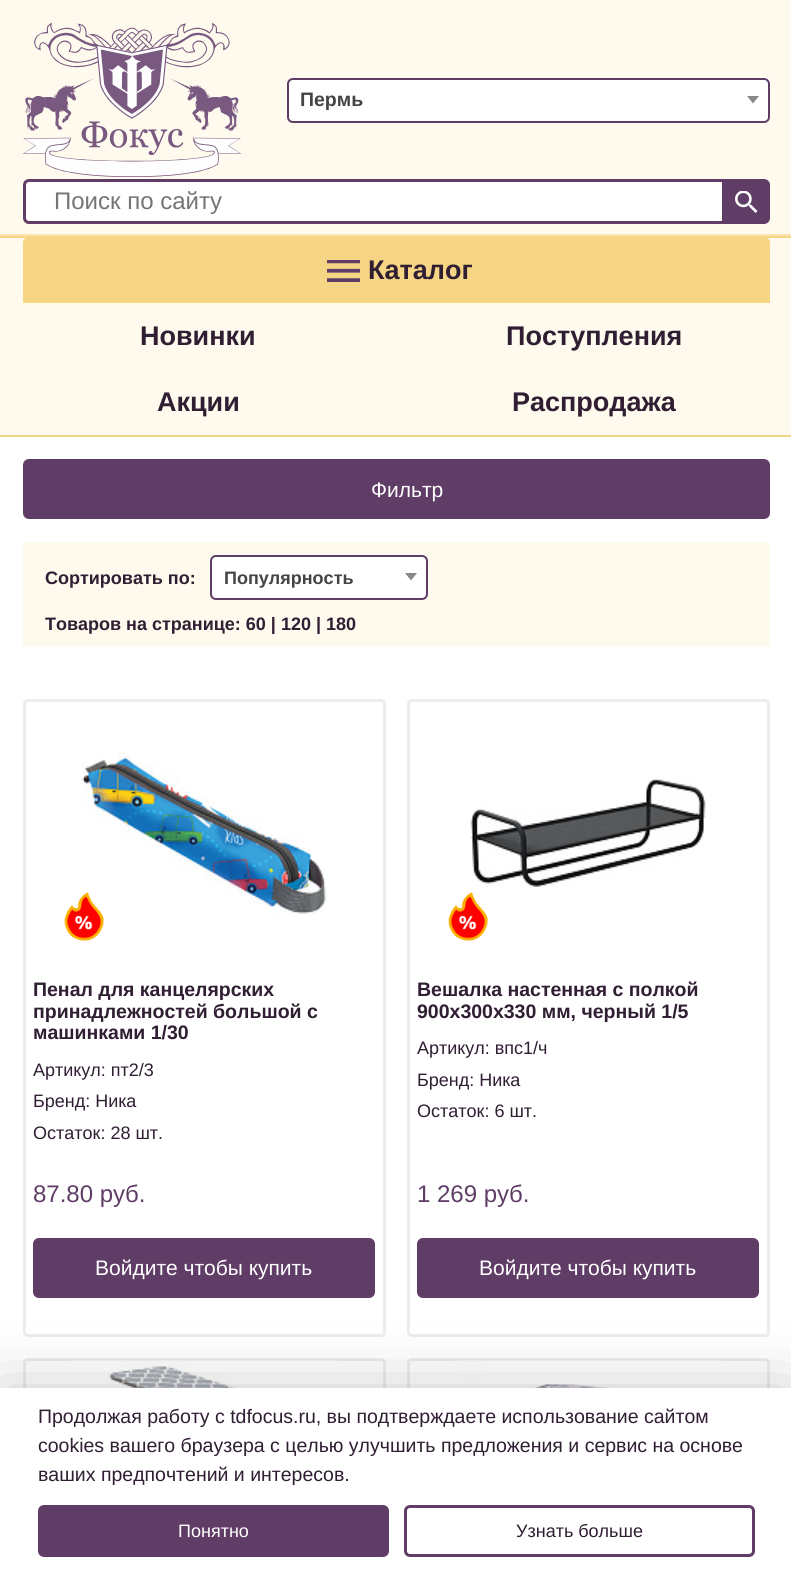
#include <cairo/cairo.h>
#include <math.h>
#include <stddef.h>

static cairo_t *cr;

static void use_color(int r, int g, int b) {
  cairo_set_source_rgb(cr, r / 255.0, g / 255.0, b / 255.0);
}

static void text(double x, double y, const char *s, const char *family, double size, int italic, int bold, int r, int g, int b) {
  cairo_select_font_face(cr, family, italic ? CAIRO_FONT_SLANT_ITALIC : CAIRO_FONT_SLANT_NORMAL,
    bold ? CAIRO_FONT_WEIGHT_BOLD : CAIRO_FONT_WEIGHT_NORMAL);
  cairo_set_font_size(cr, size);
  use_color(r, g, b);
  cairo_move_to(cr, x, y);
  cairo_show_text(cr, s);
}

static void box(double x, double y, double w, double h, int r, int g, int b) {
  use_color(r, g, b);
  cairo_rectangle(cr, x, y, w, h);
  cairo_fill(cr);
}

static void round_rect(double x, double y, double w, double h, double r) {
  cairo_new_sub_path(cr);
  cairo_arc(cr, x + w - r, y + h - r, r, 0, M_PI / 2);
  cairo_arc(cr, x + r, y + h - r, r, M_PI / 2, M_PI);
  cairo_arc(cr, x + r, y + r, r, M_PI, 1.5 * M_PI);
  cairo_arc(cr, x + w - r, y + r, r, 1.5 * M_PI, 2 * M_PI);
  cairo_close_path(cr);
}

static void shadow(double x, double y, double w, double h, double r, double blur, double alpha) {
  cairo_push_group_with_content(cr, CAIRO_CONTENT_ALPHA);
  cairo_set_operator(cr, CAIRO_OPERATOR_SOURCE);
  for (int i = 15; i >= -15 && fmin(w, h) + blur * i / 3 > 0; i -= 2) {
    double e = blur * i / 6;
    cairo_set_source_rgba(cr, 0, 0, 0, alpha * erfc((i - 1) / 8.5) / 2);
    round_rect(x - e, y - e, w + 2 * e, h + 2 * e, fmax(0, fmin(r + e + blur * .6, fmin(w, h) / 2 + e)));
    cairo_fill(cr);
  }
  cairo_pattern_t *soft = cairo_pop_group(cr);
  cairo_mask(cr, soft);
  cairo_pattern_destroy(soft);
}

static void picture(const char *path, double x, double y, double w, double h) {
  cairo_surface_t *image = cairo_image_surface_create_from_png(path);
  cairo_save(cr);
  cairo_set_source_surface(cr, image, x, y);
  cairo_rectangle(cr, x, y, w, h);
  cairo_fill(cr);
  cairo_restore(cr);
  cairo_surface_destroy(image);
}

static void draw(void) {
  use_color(255, 255, 255);
  cairo_paint(cr);
  box(0, 0, 791, 234, 254, 250, 238);
  box(0, 234, 791, 2, 249, 229, 173);
  picture("img_01.png", 23, 23, 218, 154);
  use_color(255, 255, 255);
  round_rect(288, 79, 481, 43, 5);
  cairo_fill_preserve(cr);
  use_color(96, 61, 103);
  cairo_stroke(cr);
  use_color(136, 136, 136);
  cairo_new_path(cr);
  cairo_move_to(cr, 747, 96);
  cairo_line_to(cr, 759, 96);
  cairo_line_to(cr, 753, 103.5);
  cairo_close_path(cr);
  cairo_fill(cr);
  round_rect(24.5, 180.5, 744, 42, 4.5);
  use_color(96, 61, 103);
  cairo_set_line_width(cr, 3);
  cairo_stroke(cr);
  use_color(255, 255, 255);
  round_rect(26, 182, 696, 39, 6);
  cairo_fill(cr);
  box(722, 182, 45, 39, 96, 61, 103);
  picture("img_02.png", 735, 191, 23, 22);
  box(0, 238, 791, 197, 254, 250, 238);
  box(0, 236, 791, 2, 246, 214, 133);
  box(0, 435, 791, 2, 246, 214, 133);
  cairo_new_path(cr);
  cairo_move_to(cr, 29, 237);
  cairo_line_to(cr, 764, 237);
  cairo_curve_to(cr, 767.5, 237, 770, 239.5, 770, 243);
  cairo_line_to(cr, 770, 303);
  cairo_line_to(cr, 23, 303);
  cairo_line_to(cr, 23, 243);
  cairo_curve_to(cr, 23, 239.5, 25.5, 237, 29, 237);
  cairo_close_path(cr);
  cairo_fill(cr);
  picture("img_03.png", 327, 260, 33, 22);
  use_color(96, 61, 103);
  round_rect(24.5, 460.5, 744, 57, 4.5);
  cairo_fill_preserve(cr);
  cairo_stroke(cr);
  box(23, 542, 747, 105, 254, 250, 238);
  use_color(255, 255, 255);
  round_rect(211, 556, 216, 43, 5);
  cairo_fill_preserve(cr);
  use_color(96, 61, 103);
  cairo_set_line_width(cr, 2);
  cairo_stroke(cr);
  use_color(136, 136, 136);
  cairo_new_path(cr);
  cairo_move_to(cr, 405, 573);
  cairo_line_to(cr, 417, 573);
  cairo_line_to(cr, 411, 580.5);
  cairo_close_path(cr);
  cairo_fill(cr);
  round_rect(24.5, 700.5, 360, 635, 3.5);
  use_color(239, 235, 239);
  cairo_set_line_width(cr, 3);
  cairo_stroke(cr);
  picture("img_04.png", 82, 751, 244, 164);
  picture("img_05.png", 64, 892, 40, 49);
  use_color(96, 61, 103);
  round_rect(34.5, 1239.5, 339, 57, 4.5);
  cairo_fill_preserve(cr);
  cairo_stroke(cr);
  round_rect(408.5, 700.5, 360, 635, 3.5);
  use_color(239, 235, 239);
  cairo_stroke(cr);
  picture("img_06.png", 470, 778, 236, 109);
  picture("img_07.png", 448, 892, 40, 49);
  use_color(96, 61, 103);
  round_rect(418.5, 1239.5, 339, 57, 4.5);
  cairo_fill_preserve(cr);
  cairo_stroke(cr);
  round_rect(24.5, 1359.5, 360, 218, 3.5);
  use_color(239, 235, 239);
  cairo_stroke(cr);
  picture("img_08.png", 70, 1360, 268, 28);
  round_rect(408.5, 1359.5, 360, 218, 3.5);
  cairo_stroke(cr);
  picture("img_09.png", 454, 1360, 268, 28);
  use_color(0, 0, 0);
  shadow(0, 1403, 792, 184, 0, 37.5, 0.3);
  box(0, 1388, 791, 183, 255, 255, 255);
  use_color(96, 61, 103);
  round_rect(39.5, 1506.5, 348, 49, 4.5);
  cairo_fill_preserve(cr);
  cairo_stroke(cr);
  round_rect(405.5, 1506.5, 348, 49, 4.5);
  cairo_stroke(cr);
  text(300, 106, "Пермь", "Arimo", 19.5, 0, 1, 68, 68, 68);
  text(54, 209, "Поиск по сайту", "Arimo", 24, 0, 0, 117, 117, 117);
  text(368, 279, "Каталог", "Arimo", 27, 0, 1, 48, 30, 51);
  text(140, 345, "Новинки", "Arimo", 27, 0, 1, 48, 30, 51);
  text(506, 345, "Поступления", "Arimo", 27, 0, 1, 48, 30, 51);
  text(157, 411, "Акции", "Arimo", 27, 0, 1, 48, 30, 51);
  text(512, 411, "Распродажа", "Arimo", 27, 0, 1, 48, 30, 51);
  text(371, 497, "Фильтр", "Arimo", 21, 0, 0, 255, 255, 255);
  text(45, 584, "Сортировать по:", "Arimo", 18, 0, 1, 48, 30, 51);
  text(224, 584, "Популярность", "Arimo", 18, 0, 1, 68, 68, 68);
  text(45, 630, "Товаров на странице: 60 | 120 | 180", "Arimo", 18, 0, 1, 48, 30, 51);
  text(33, 996, "Пенал для канцелярских", "Arimo", 19.5, 0, 1, 48, 30, 51);
  text(33, 1018, "принадлежностей большой с", "Arimo", 19.5, 0, 1, 48, 30, 51);
  text(33, 1039, "машинками 1/30", "Arimo", 19.5, 0, 1, 48, 30, 51);
  text(33, 1076, "Артикул: пт2/3", "Arimo", 18, 0, 0, 48, 30, 51);
  text(33, 1107, "Бренд: Ника", "Arimo", 18, 0, 0, 48, 30, 51);
  text(33, 1139, "Остаток: 28 шт.", "Arimo", 18, 0, 0, 48, 30, 51);
  text(33, 1202, "87.80 руб.", "Arimo", 24, 0, 0, 96, 61, 103);
  text(95, 1275, "Войдите чтобы купить", "Arimo", 21, 0, 0, 255, 255, 255);
  text(417, 996, "Вешалка настенная с полкой", "Arimo", 19.5, 0, 1, 48, 30, 51);
  text(417, 1018, "900х300х330 мм, черный 1/5", "Arimo", 19.5, 0, 1, 48, 30, 51);
  text(417, 1054, "Артикул: впс1/ч", "Arimo", 18, 0, 0, 48, 30, 51);
  text(417, 1086, "Бренд: Ника", "Arimo", 18, 0, 0, 48, 30, 51);
  text(417, 1117, "Остаток: 6 шт.", "Arimo", 18, 0, 0, 48, 30, 51);
  text(417, 1202, "1 269 руб.", "Arimo", 24, 0, 0, 96, 61, 103);
  text(479, 1275, "Войдите чтобы купить", "Arimo", 21, 0, 0, 255, 255, 255);
  text(38, 1423, "Продолжая работу с tdfocus.ru, вы подтверждаете использование сайтом", "Arimo", 19.5, 0, 0, 48, 30, 51);
  text(38, 1452, "cookies вашего браузера с целью улучшить предложения и сервис на основе", "Arimo", 19.5, 0, 0, 48, 30, 51);
  text(38, 1481, "ваших предпочтений и интересов.", "Arimo", 19.5, 0, 0, 48, 30, 51);
  text(178, 1537, "Понятно", "Arimo", 18, 0, 0, 255, 255, 255);
  text(516, 1537, "Узнать больше", "Arimo", 18, 0, 0, 48, 30, 51);
}

int main(void) {
  cairo_surface_t *surface = cairo_image_surface_create(CAIRO_FORMAT_RGB24, 791, 1571);
  cr = cairo_create(surface);
  cairo_font_options_t *options = cairo_font_options_create();
  cairo_font_options_set_hint_metrics(options, CAIRO_HINT_METRICS_OFF);
  cairo_font_options_set_hint_style(options, CAIRO_HINT_STYLE_NONE);
  cairo_set_font_options(cr, options);
  cairo_set_miter_limit(cr, 4);
  draw();
  cairo_surface_write_to_png(surface, "out.png");
  cairo_font_options_destroy(options);
  cairo_destroy(cr);
  cairo_surface_destroy(surface);
  return 0;
}
